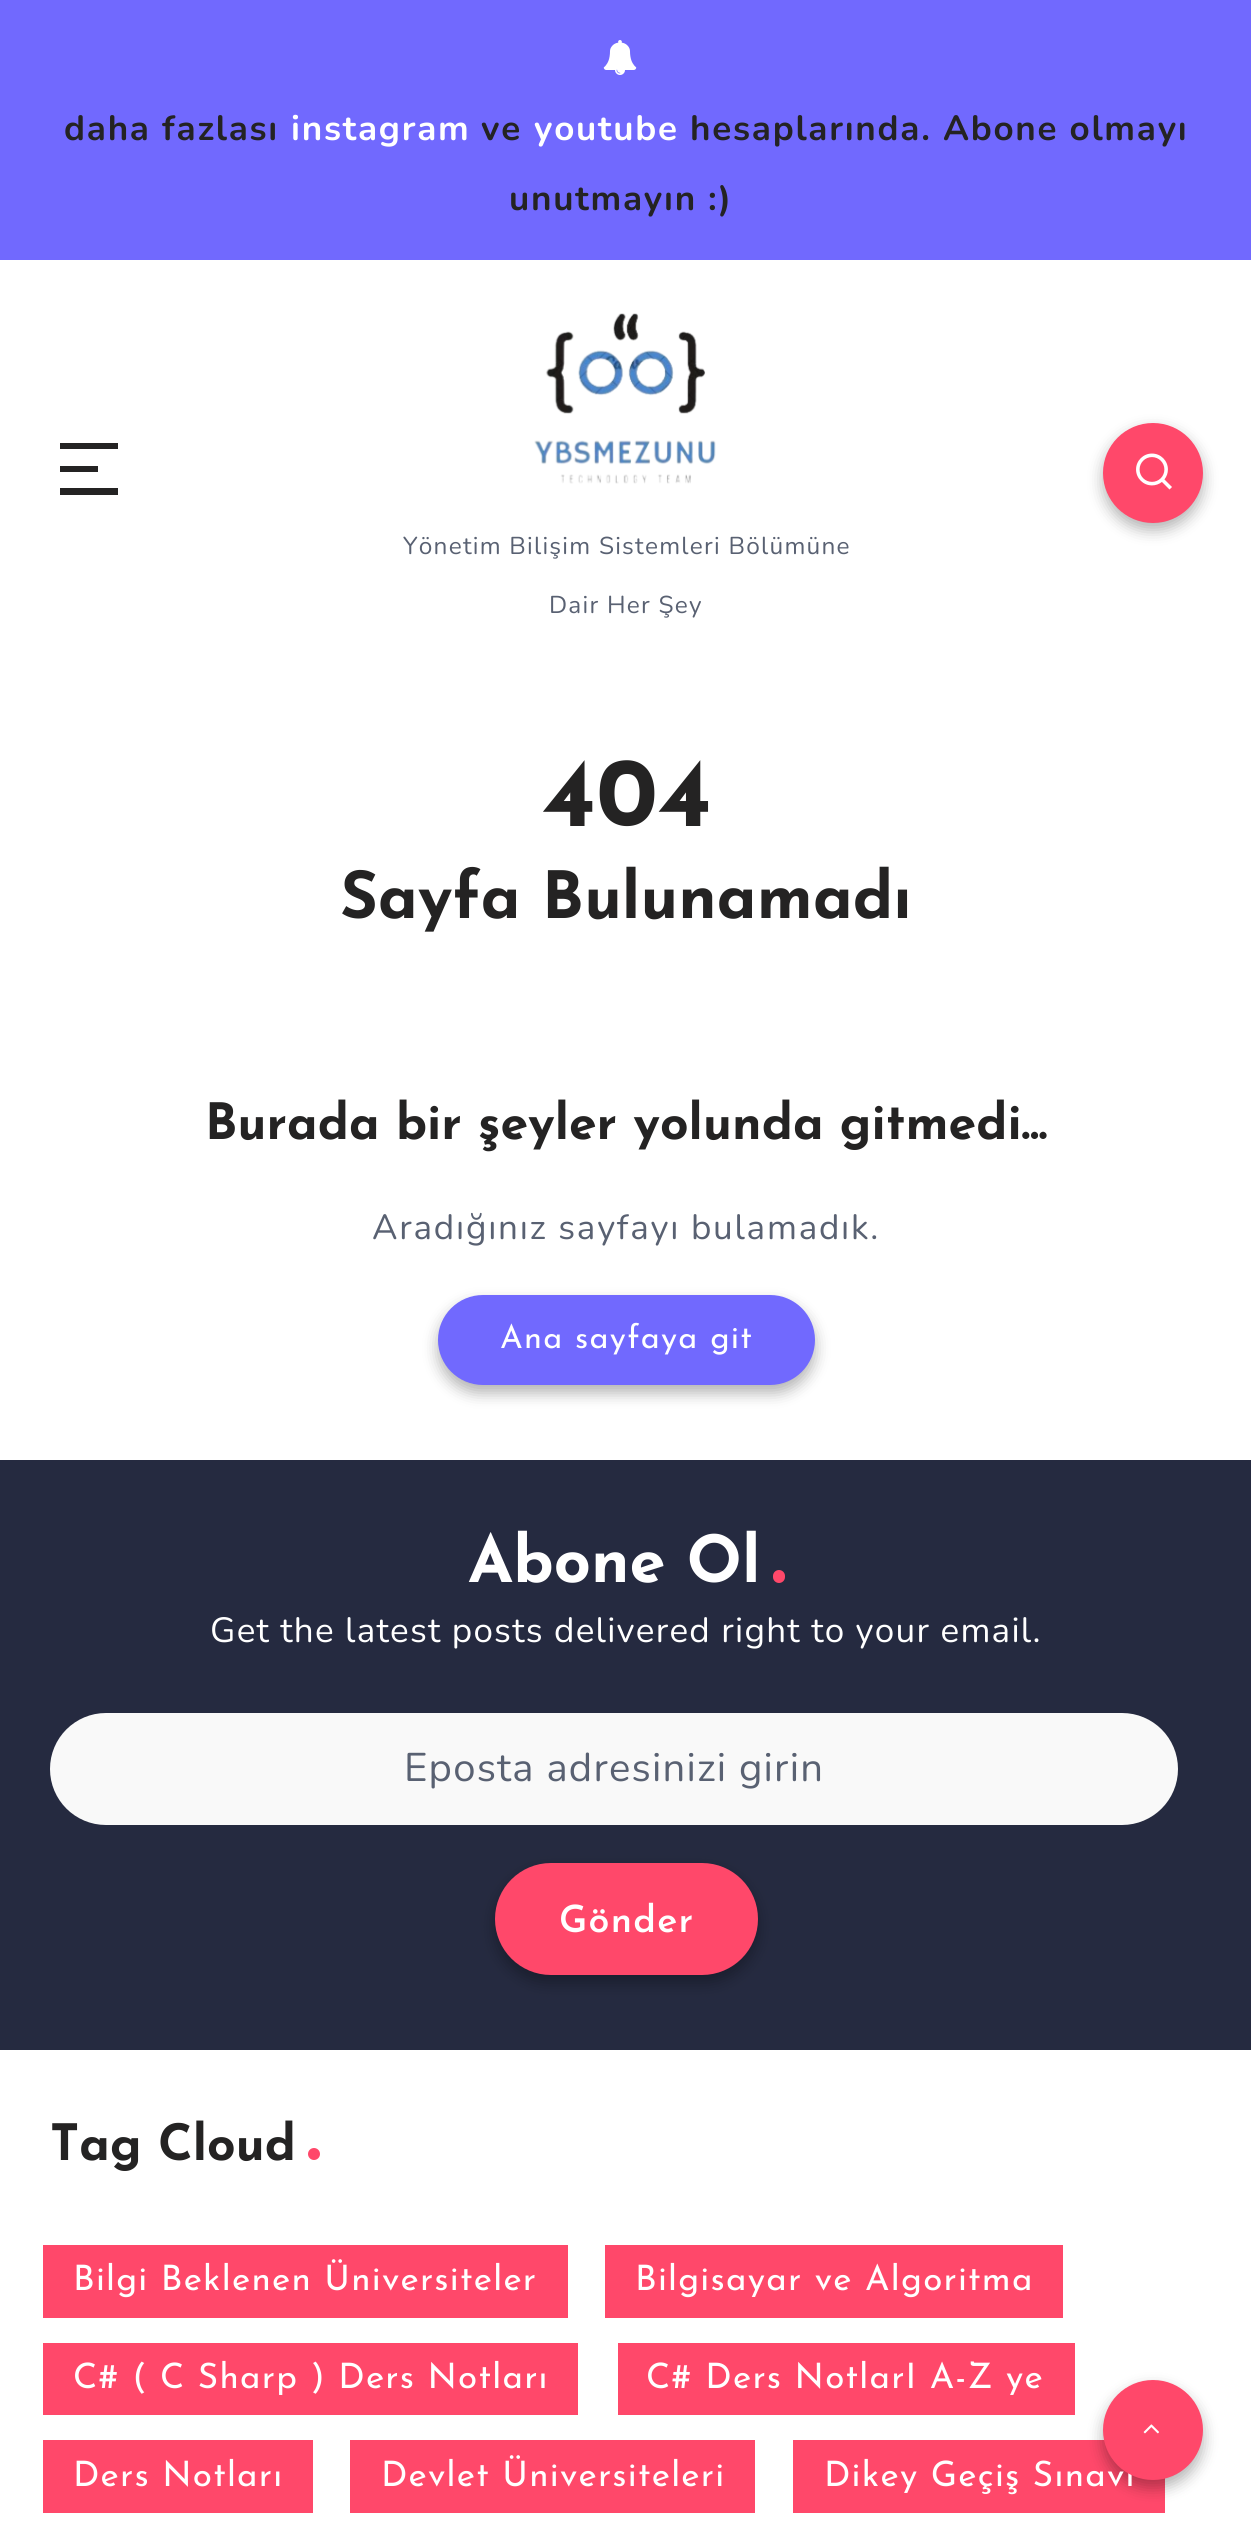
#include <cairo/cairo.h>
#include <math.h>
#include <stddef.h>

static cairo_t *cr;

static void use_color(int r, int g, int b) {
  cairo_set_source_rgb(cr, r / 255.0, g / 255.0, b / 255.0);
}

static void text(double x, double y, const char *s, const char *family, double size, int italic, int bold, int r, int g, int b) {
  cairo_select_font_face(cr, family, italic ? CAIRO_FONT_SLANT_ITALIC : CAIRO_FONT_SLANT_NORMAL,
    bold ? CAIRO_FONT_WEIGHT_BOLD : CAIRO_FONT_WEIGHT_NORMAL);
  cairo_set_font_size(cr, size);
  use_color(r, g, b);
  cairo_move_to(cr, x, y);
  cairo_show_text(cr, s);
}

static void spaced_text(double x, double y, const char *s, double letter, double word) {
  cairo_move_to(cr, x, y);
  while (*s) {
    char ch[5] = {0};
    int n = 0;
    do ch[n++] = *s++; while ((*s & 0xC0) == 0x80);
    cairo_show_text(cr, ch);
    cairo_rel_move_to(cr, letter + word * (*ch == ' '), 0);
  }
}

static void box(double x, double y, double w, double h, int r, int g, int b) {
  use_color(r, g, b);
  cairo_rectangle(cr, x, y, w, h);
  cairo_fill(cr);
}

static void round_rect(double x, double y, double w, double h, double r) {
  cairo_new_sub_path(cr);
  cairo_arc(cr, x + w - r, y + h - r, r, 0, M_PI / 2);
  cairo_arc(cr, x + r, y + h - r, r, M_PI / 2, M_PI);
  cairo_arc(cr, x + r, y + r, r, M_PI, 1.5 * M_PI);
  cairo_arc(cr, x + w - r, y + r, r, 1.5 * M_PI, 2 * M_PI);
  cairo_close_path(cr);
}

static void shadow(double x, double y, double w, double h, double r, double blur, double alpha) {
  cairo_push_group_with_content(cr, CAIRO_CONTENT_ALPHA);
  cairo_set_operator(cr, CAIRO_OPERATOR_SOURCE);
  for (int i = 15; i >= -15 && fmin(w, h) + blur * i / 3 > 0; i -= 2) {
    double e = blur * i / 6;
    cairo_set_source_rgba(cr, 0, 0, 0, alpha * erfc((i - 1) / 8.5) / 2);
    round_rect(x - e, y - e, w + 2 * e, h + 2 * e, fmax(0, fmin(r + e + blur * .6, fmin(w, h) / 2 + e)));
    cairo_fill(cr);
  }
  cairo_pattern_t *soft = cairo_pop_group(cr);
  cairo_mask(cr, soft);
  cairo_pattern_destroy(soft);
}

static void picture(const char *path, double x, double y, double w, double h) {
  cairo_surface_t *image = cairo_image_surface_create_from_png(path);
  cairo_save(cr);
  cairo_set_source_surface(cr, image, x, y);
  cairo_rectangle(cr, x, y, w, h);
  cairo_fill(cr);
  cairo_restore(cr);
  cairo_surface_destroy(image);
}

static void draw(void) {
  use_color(255, 255, 255);
  cairo_paint(cr);
  box(0, 0, 1251, 260, 113, 105, 254);
  picture("img_01.png", 603, 40, 34, 35);
  use_color(36, 35, 35);
  cairo_new_path(cr);
  cairo_move_to(cr, 60, 443);
  cairo_line_to(cr, 118, 443);
  cairo_line_to(cr, 118, 449);
  cairo_line_to(cr, 60, 449);
  cairo_close_path(cr);
  cairo_move_to(cr, 60, 466);
  cairo_line_to(cr, 98, 466);
  cairo_line_to(cr, 98, 472);
  cairo_line_to(cr, 60, 472);
  cairo_close_path(cr);
  cairo_move_to(cr, 60, 488);
  cairo_line_to(cr, 118, 488);
  cairo_line_to(cr, 118, 495);
  cairo_line_to(cr, 60, 495);
  cairo_close_path(cr);
  cairo_fill(cr);
  use_color(0, 0, 0);
  shadow(1103, 430, 100, 100, 50, 7.5, 0.3);
  use_color(255, 72, 106);
  cairo_arc(cr, 1153, 473, 50, 0, 2 * M_PI);
  cairo_fill(cr);
  picture("img_02.png", 1136, 453, 36, 37);
  picture("img_03.png", 534, 313, 182, 171);
  use_color(0, 0, 0);
  shadow(438, 1303, 377, 90, 45, 7.5, 0.3);
  use_color(113, 105, 254);
  round_rect(438, 1295, 377, 90, 45);
  cairo_fill(cr);
  box(0, 1460, 1251, 590, 37, 42, 64);
  use_color(255, 72, 106);
  round_rect(773, 1570, 12, 13, 6);
  cairo_fill(cr);
  use_color(249, 249, 249);
  round_rect(50, 1713, 1128, 112, 56);
  cairo_fill(cr);
  use_color(0, 0, 0);
  shadow(495, 1870, 263, 113, 56.5, 7.5, 0.3);
  use_color(255, 72, 106);
  round_rect(495, 1863, 263, 112, 56);
  cairo_fill(cr);
  cairo_arc(cr, 314, 2154, 6, 0, 2 * M_PI);
  cairo_fill(cr);
  box(43, 2245, 525, 73, 255, 72, 106);
  box(605, 2245, 458, 73, 255, 72, 106);
  box(43, 2343, 535, 72, 255, 72, 106);
  box(618, 2343, 457, 72, 255, 72, 106);
  box(43, 2440, 270, 73, 255, 72, 106);
  box(350, 2440, 405, 73, 255, 72, 106);
  box(793, 2440, 372, 73, 255, 72, 106);
  use_color(0, 0, 0);
  shadow(1103, 2388, 100, 100, 50, 7.5, 0.3);
  cairo_select_font_face(cr, "Nunito", CAIRO_FONT_SLANT_NORMAL, CAIRO_FONT_WEIGHT_BOLD);
  cairo_set_font_size(cr, 35);
  use_color(36, 35, 35);
  spaced_text(64, 140, "daha fazlası", 1.75, 0);
  use_color(255, 255, 255);
  spaced_text(291, 140, "instagram", 1.75, 0);
  use_color(36, 35, 35);
  spaced_text(481, 140, "ve", 1.75, 0);
  use_color(255, 255, 255);
  spaced_text(534, 140, "youtube", 1.75, 0);
  use_color(36, 35, 35);
  spaced_text(690, 140, "hesaplarında. Abone olmayı", 1.75, 0);
  spaced_text(509, 210, "unutmayın :)", 1.75, 0);
  cairo_select_font_face(cr, "Nunito", CAIRO_FONT_SLANT_NORMAL, CAIRO_FONT_WEIGHT_NORMAL);
  cairo_set_font_size(cr, 24.4);
  use_color(89, 97, 114);
  spaced_text(403, 554, "Yönetim Bilişim Sistemleri Bölümüne", 1.25, 0);
  spaced_text(549, 613, "Dair Her Şey", 1.25, 0);
  text(542, 826, "404", "Josefin Sans", 98, 0, 1, 36, 35, 35);
  text(340, 918, "Sayfa Bulunamadı", "Josefin Sans", 65, 0, 1, 36, 35, 35);
  text(205, 1139, "Burada bir şeyler yolunda gitmedi...", "Josefin Sans", 50, 0, 1, 36, 35, 35);
  cairo_select_font_face(cr, "Nunito", CAIRO_FONT_SLANT_NORMAL, CAIRO_FONT_WEIGHT_NORMAL);
  cairo_set_font_size(cr, 35);
  use_color(89, 97, 114);
  spaced_text(372, 1239, "Aradığınız sayfayı bulamadık.", 1.75, 0);
  cairo_select_font_face(cr, "Josefin Sans", CAIRO_FONT_SLANT_NORMAL, CAIRO_FONT_WEIGHT_NORMAL);
  cairo_set_font_size(cr, 32.5);
  use_color(255, 255, 255);
  spaced_text(500, 1348, "Ana sayfaya git", 1.25, 0);
  text(468, 1582, "Abone Ol", "Josefin Sans", 65, 0, 1, 255, 255, 255);
  cairo_select_font_face(cr, "Nunito", CAIRO_FONT_SLANT_NORMAL, CAIRO_FONT_WEIGHT_NORMAL);
  cairo_set_font_size(cr, 35);
  spaced_text(210, 1642, "Get the latest posts delivered right to your email.", 1.25, 0);
  cairo_set_font_size(cr, 40);
  use_color(89, 97, 114);
  spaced_text(404, 1781, "Eposta adresinizi girin", 1.25, 0);
  cairo_select_font_face(cr, "Josefin Sans SemiBold", CAIRO_FONT_SLANT_NORMAL, CAIRO_FONT_WEIGHT_NORMAL);
  cairo_set_font_size(cr, 37.5);
  use_color(255, 255, 255);
  spaced_text(559, 1932, "Gönder", 1.25, 0);
  text(50, 2160, "Tag Cloud", "Josefin Sans", 50, 0, 1, 36, 35, 35);
  cairo_select_font_face(cr, "Josefin Sans", CAIRO_FONT_SLANT_NORMAL, CAIRO_FONT_WEIGHT_NORMAL);
  cairo_set_font_size(cr, 35);
  use_color(255, 255, 255);
  spaced_text(73, 2290, "Bilgi Beklenen Üniversiteler", 1.25, 0);
  spaced_text(635, 2290, "Bilgisayar ve Algoritma", 1.25, 0);
  spaced_text(73, 2388, "C# ( C Sharp ) Ders Notları", 1.25, 0);
  spaced_text(646, 2388, "C# Ders NotlarI A-Z ye", 1.25, 0);
  spaced_text(73, 2486, "Ders Notları", 1.25, 0);
  spaced_text(381, 2486, "Devlet Üniversiteleri", 1.25, 0);
  spaced_text(824, 2486, "Dikey Geçiş Sınavı", 1.25, 0);
  use_color(255, 72, 106);
  cairo_new_path(cr);
  cairo_arc(cr, 1153, 2430, 50, 0, 2 * M_PI);
  cairo_fill(cr);
  picture("img_04.png", 1143, 2424, 16, 10);
}

int main(void) {
  cairo_surface_t *surface = cairo_image_surface_create(CAIRO_FORMAT_RGB24, 1251, 2529);
  cr = cairo_create(surface);
  cairo_font_options_t *options = cairo_font_options_create();
  cairo_font_options_set_hint_metrics(options, CAIRO_HINT_METRICS_OFF);
  cairo_font_options_set_hint_style(options, CAIRO_HINT_STYLE_NONE);
  cairo_set_font_options(cr, options);
  cairo_set_miter_limit(cr, 4);
  draw();
  cairo_surface_write_to_png(surface, "out.png");
  cairo_font_options_destroy(options);
  cairo_destroy(cr);
  cairo_surface_destroy(surface);
  return 0;
}
